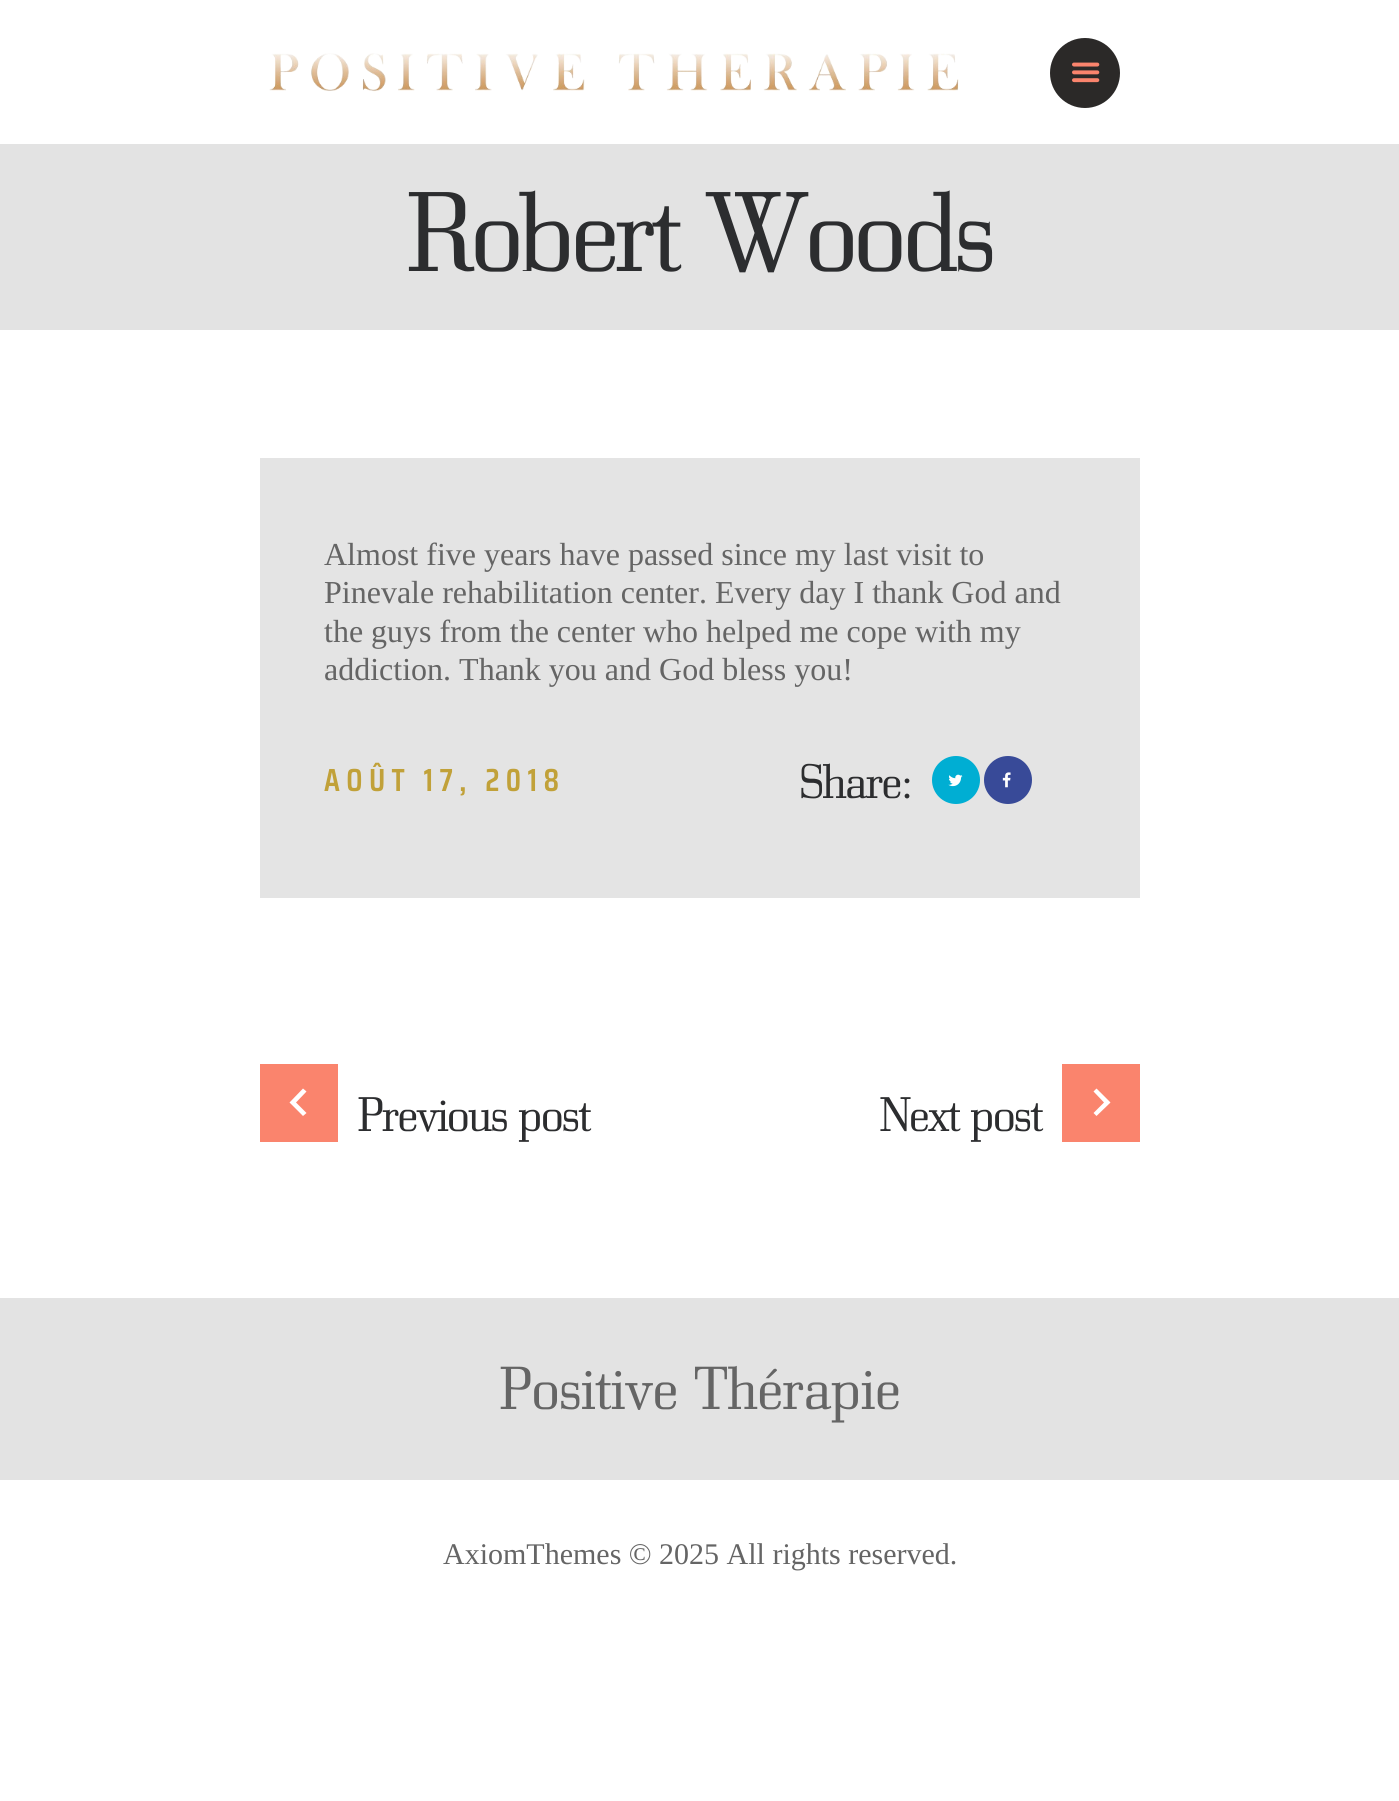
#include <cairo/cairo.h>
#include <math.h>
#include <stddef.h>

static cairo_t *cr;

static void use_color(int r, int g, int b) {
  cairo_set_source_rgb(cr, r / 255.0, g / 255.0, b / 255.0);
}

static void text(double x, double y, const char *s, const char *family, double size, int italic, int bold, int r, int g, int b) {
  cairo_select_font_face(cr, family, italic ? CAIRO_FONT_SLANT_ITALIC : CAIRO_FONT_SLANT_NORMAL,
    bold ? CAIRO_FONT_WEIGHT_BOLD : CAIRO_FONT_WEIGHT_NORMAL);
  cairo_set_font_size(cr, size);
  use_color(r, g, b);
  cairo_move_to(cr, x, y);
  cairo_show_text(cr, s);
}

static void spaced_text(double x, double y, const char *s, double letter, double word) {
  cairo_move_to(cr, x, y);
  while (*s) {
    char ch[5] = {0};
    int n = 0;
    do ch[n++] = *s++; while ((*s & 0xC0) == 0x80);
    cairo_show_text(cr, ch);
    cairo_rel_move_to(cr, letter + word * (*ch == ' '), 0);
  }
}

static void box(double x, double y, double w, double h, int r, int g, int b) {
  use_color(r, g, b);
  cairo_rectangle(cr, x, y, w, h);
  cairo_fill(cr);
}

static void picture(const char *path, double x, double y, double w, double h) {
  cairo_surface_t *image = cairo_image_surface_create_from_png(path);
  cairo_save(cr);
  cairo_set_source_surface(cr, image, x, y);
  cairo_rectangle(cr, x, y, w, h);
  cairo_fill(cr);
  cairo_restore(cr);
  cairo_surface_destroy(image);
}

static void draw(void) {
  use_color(255, 255, 255);
  cairo_paint(cr);
  picture("img_01.png", 269, 53, 690, 39);
  use_color(43, 41, 40);
  cairo_arc(cr, 1085, 73, 35, 0, 2 * M_PI);
  cairo_fill(cr);
  picture("img_02.png", 1072, 62, 28, 21);
  box(0, 144, 1399, 186, 227, 227, 227);
  box(260, 458, 880, 440, 228, 228, 228);
  use_color(0, 174, 211);
  cairo_arc(cr, 956, 780, 24, 0, 2 * M_PI);
  cairo_fill(cr);
  picture("img_03.png", 948, 774, 15, 13);
  use_color(56, 74, 152);
  cairo_arc(cr, 1008, 780, 24, 0, 2 * M_PI);
  cairo_fill(cr);
  picture("img_04.png", 1002, 772, 9, 16);
  box(260, 1064, 78, 78, 250, 132, 109);
  use_color(255, 255, 255);
  cairo_new_path(cr);
  cairo_move_to(cr, 303, 1116);
  cairo_line_to(cr, 306.5, 1113);
  cairo_line_to(cr, 296, 1102.5);
  cairo_line_to(cr, 306.5, 1091.5);
  cairo_line_to(cr, 303, 1088.5);
  cairo_line_to(cr, 289.5, 1102.5);
  cairo_close_path(cr);
  cairo_fill(cr);
  box(1062, 1064, 78, 78, 250, 132, 109);
  use_color(255, 255, 255);
  cairo_new_path(cr);
  cairo_move_to(cr, 1096.5, 1088.5);
  cairo_line_to(cr, 1093.5, 1091.5);
  cairo_line_to(cr, 1104, 1102.5);
  cairo_line_to(cr, 1093.5, 1113);
  cairo_line_to(cr, 1096.5, 1116);
  cairo_line_to(cr, 1110.5, 1102.5);
  cairo_close_path(cr);
  cairo_fill(cr);
  box(0, 1298, 1399, 182, 227, 227, 227);
  cairo_select_font_face(cr, "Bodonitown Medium", CAIRO_FONT_SLANT_NORMAL, CAIRO_FONT_WEIGHT_NORMAL);
  cairo_set_font_size(cr, 112);
  use_color(44, 45, 47);
  spaced_text(407, 271, "Robert Woods", -4, 0);
  text(324, 565, "Almost five years have passed since my last visit to", "Liberation Serif", 32, 0, 0, 101, 101, 101);
  text(324, 603, "Pinevale rehabilitation center. Every day I thank God and", "Liberation Serif", 32, 0, 0, 101, 101, 101);
  text(324, 642, "the guys from the center who helped me cope with my", "Liberation Serif", 32, 0, 0, 101, 101, 101);
  text(324, 680, "addiction. Thank you and God bless you!", "Liberation Serif", 32, 0, 0, 101, 101, 101);
  cairo_select_font_face(cr, "Saira Condensed SemiBold", CAIRO_FONT_SLANT_NORMAL, CAIRO_FONT_WEIGHT_NORMAL);
  use_color(193, 161, 57);
  spaced_text(324, 791, "AOÛT 17, 2018", 6.4, 0);
  cairo_select_font_face(cr, "Bodonitown Medium", CAIRO_FONT_SLANT_NORMAL, CAIRO_FONT_WEIGHT_NORMAL);
  cairo_set_font_size(cr, 48);
  use_color(44, 45, 47);
  spaced_text(799, 798, "Share:", -1.75, 0);
  spaced_text(358, 1131, "Previous post", -1.75, 0);
  spaced_text(880, 1131, "Next post", -1.75, 0);
  cairo_set_font_size(cr, 60);
  use_color(101, 101, 101);
  spaced_text(500, 1409, "Positive Thérapie", -0.6, 0);
  text(443, 1564, "AxiomThemes © 2025 All rights reserved.", "Liberation Serif", 30, 0, 0, 101, 101, 101);
}

int main(void) {
  cairo_surface_t *surface = cairo_image_surface_create(CAIRO_FORMAT_RGB24, 1399, 1801);
  cr = cairo_create(surface);
  cairo_font_options_t *options = cairo_font_options_create();
  cairo_font_options_set_hint_metrics(options, CAIRO_HINT_METRICS_OFF);
  cairo_font_options_set_hint_style(options, CAIRO_HINT_STYLE_NONE);
  cairo_set_font_options(cr, options);
  cairo_set_miter_limit(cr, 4);
  draw();
  cairo_surface_write_to_png(surface, "out.png");
  cairo_font_options_destroy(options);
  cairo_destroy(cr);
  cairo_surface_destroy(surface);
  return 0;
}
